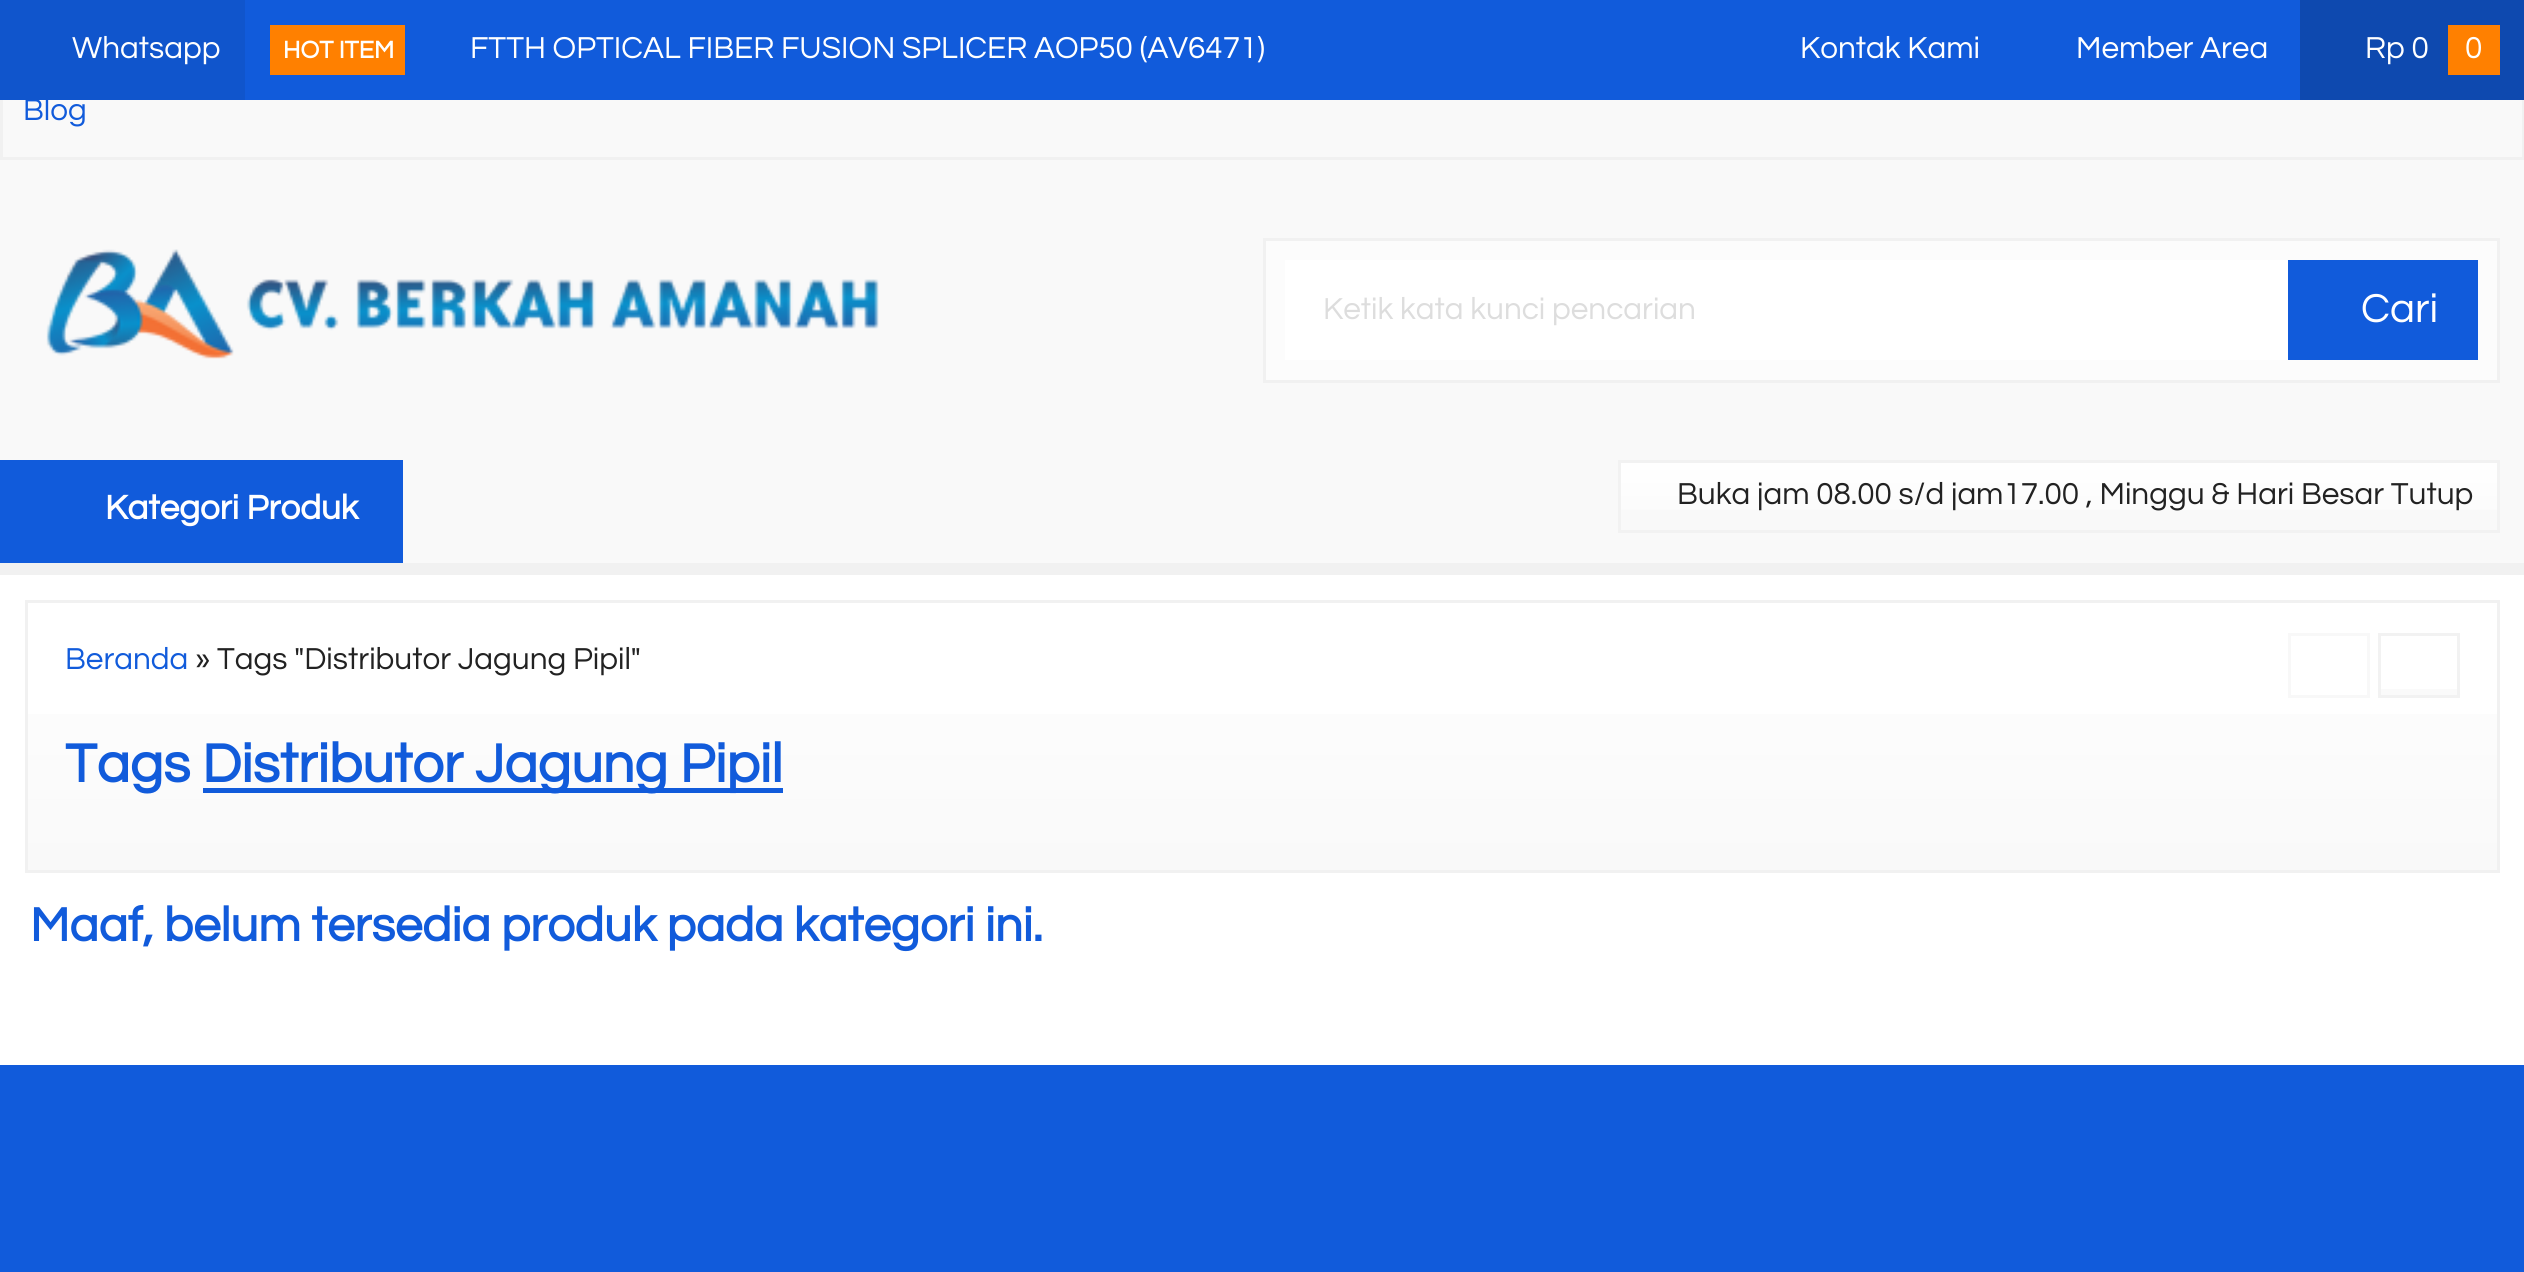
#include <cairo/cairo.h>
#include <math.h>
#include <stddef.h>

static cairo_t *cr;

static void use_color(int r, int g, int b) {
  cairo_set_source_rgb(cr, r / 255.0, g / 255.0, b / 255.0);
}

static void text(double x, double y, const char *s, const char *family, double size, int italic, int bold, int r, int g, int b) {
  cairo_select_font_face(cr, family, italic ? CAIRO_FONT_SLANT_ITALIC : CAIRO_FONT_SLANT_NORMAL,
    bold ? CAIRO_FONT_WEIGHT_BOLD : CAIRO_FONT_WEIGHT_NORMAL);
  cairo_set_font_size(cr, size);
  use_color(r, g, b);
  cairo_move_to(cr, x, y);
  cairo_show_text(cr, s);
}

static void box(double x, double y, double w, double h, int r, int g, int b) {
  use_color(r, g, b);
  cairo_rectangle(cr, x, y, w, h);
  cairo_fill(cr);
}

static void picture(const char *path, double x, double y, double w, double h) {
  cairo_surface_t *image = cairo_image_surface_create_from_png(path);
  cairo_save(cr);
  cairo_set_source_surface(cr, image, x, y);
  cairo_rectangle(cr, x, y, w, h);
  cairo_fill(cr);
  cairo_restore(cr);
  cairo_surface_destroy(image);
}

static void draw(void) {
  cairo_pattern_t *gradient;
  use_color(249, 249, 249);
  cairo_paint(cr);
  cairo_rectangle(cr, 1.5, -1.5, 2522, 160);
  use_color(241, 241, 241);
  cairo_set_line_width(cr, 3);
  cairo_stroke(cr);
  box(245, 0, 2055, 100, 17, 91, 219);
  box(270, 25, 135, 50, 255, 128, 0);
  box(2300, 0, 224, 100, 14, 73, 175);
  box(2448, 25, 52, 50, 255, 128, 0);
  picture("img_01.png", 46, 249, 833, 110);
  use_color(252, 252, 252);
  cairo_rectangle(cr, 1264.5, 239.5, 1234, 142);
  cairo_fill_preserve(cr);
  use_color(241, 241, 241);
  cairo_stroke(cr);
  box(1285, 260, 1003, 100, 255, 255, 255);
  box(2288, 260, 190, 100, 17, 91, 219);
  box(0, 460, 403, 103, 17, 91, 219);
  gradient = cairo_pattern_create_linear(2059, 530, 2059, 463);
  cairo_pattern_add_color_stop_rgba(gradient, 0, 0.98, 0.98, 0.98, 1);
  cairo_pattern_add_color_stop_rgba(gradient, 1, 1, 1, 1, 1);
  cairo_set_source(cr, gradient);
  cairo_pattern_destroy(gradient);
  cairo_rectangle(cr, 1621, 463, 876, 47);
  cairo_fill(cr);
  cairo_rectangle(cr, 1619.5, 461.5, 879, 70);
  use_color(242, 242, 242);
  cairo_stroke(cr);
  box(0, 575, 2524, 490, 255, 255, 255);
  box(0, 563, 2524, 12, 241, 241, 241);
  gradient = cairo_pattern_create_linear(1263, 602, 1263, 870);
  cairo_pattern_add_color_stop_rgba(gradient, 0, 1, 1, 1, 1);
  cairo_pattern_add_color_stop_rgba(gradient, 1, 0.976, 0.976, 0.976, 1);
  cairo_set_source(cr, gradient);
  cairo_pattern_destroy(gradient);
  cairo_rectangle(cr, 28, 714, 2469, 156);
  cairo_fill(cr);
  cairo_rectangle(cr, 26.5, 601.5, 2472, 270);
  use_color(241, 241, 241);
  cairo_stroke(cr);
  cairo_rectangle(cr, 2289.5, 634.5, 79, 62);
  use_color(248, 248, 248);
  cairo_stroke(cr);
  gradient = cairo_pattern_create_linear(2419, 695, 2419, 635);
  cairo_pattern_add_color_stop_rgba(gradient, 0, 0.98, 0.98, 0.98, 1);
  cairo_pattern_add_color_stop_rgba(gradient, 1, 1, 1, 1, 1);
  cairo_set_source(cr, gradient);
  cairo_pattern_destroy(gradient);
  cairo_rectangle(cr, 2381, 689, 76, 6);
  cairo_fill(cr);
  cairo_rectangle(cr, 2379.5, 634.5, 79, 62);
  use_color(242, 242, 242);
  cairo_stroke(cr);
  box(203, 788, 580, 5, 17, 91, 219);
  box(0, 1065, 2524, 207, 17, 91, 219);
  text(283, 58, "HOT ITEM", "Questrial", 25, 0, 1, 255, 255, 255);
  text(470, 58, "FTTH OPTICAL FIBER FUSION SPLICER AOP50 (AV6471)", "Questrial", 31.5, 0, 0, 255, 255, 255);
  text(1800, 58, "Kontak Kami", "Questrial", 31.5, 0, 0, 255, 255, 255);
  text(2076, 58, "Member Area", "Questrial", 31.5, 0, 0, 255, 255, 255);
  text(2365, 58, "Rp 0", "Questrial", 31.5, 0, 0, 255, 255, 255);
  text(2465, 58, "0", "Questrial", 31.5, 0, 0, 255, 255, 255);
  text(23, 120, "Blog", "Questrial", 31.5, 0, 0, 17, 91, 219);
  box(0, 0, 245, 100, 16, 85, 204);
  text(72, 58, "Whatsapp", "Questrial", 31.5, 0, 0, 255, 255, 255);
  text(1323, 319, "Ketik kata kunci pencarian", "Questrial", 31.5, 0, 0, 221, 221, 221);
  text(2361, 322, "Cari", "Questrial", 42, 0, 0, 255, 255, 255);
  text(105, 519, "Kategori Produk", "Questrial", 35, 0, 1, 255, 255, 255);
  text(1677, 504, "Buka jam 08.00 s/d jam17.00 , Minggu & Hari Besar Tutup", "Questrial", 31.5, 0, 0, 34, 34, 34);
  text(65, 669, "Beranda", "Questrial", 31.5, 0, 0, 17, 91, 219);
  text(195, 669, "» Tags \"Distributor Jagung Pipil\"", "Questrial", 31.5, 0, 0, 34, 34, 34);
  text(65, 782, "Tags", "Questrial", 56, 0, 1, 17, 91, 219);
  text(202, 782, "Distributor Jagung Pipil", "Questrial", 56, 0, 1, 17, 91, 219);
  text(30, 941, "Maaf, belum tersedia produk pada kategori ini.", "Questrial", 49, 0, 1, 17, 91, 219);
}

int main(void) {
  cairo_surface_t *surface = cairo_image_surface_create(CAIRO_FORMAT_RGB24, 2524, 1272);
  cr = cairo_create(surface);
  cairo_font_options_t *options = cairo_font_options_create();
  cairo_font_options_set_hint_metrics(options, CAIRO_HINT_METRICS_OFF);
  cairo_font_options_set_hint_style(options, CAIRO_HINT_STYLE_NONE);
  cairo_set_font_options(cr, options);
  cairo_set_miter_limit(cr, 4);
  draw();
  cairo_surface_write_to_png(surface, "out.png");
  cairo_font_options_destroy(options);
  cairo_destroy(cr);
  cairo_surface_destroy(surface);
  return 0;
}
